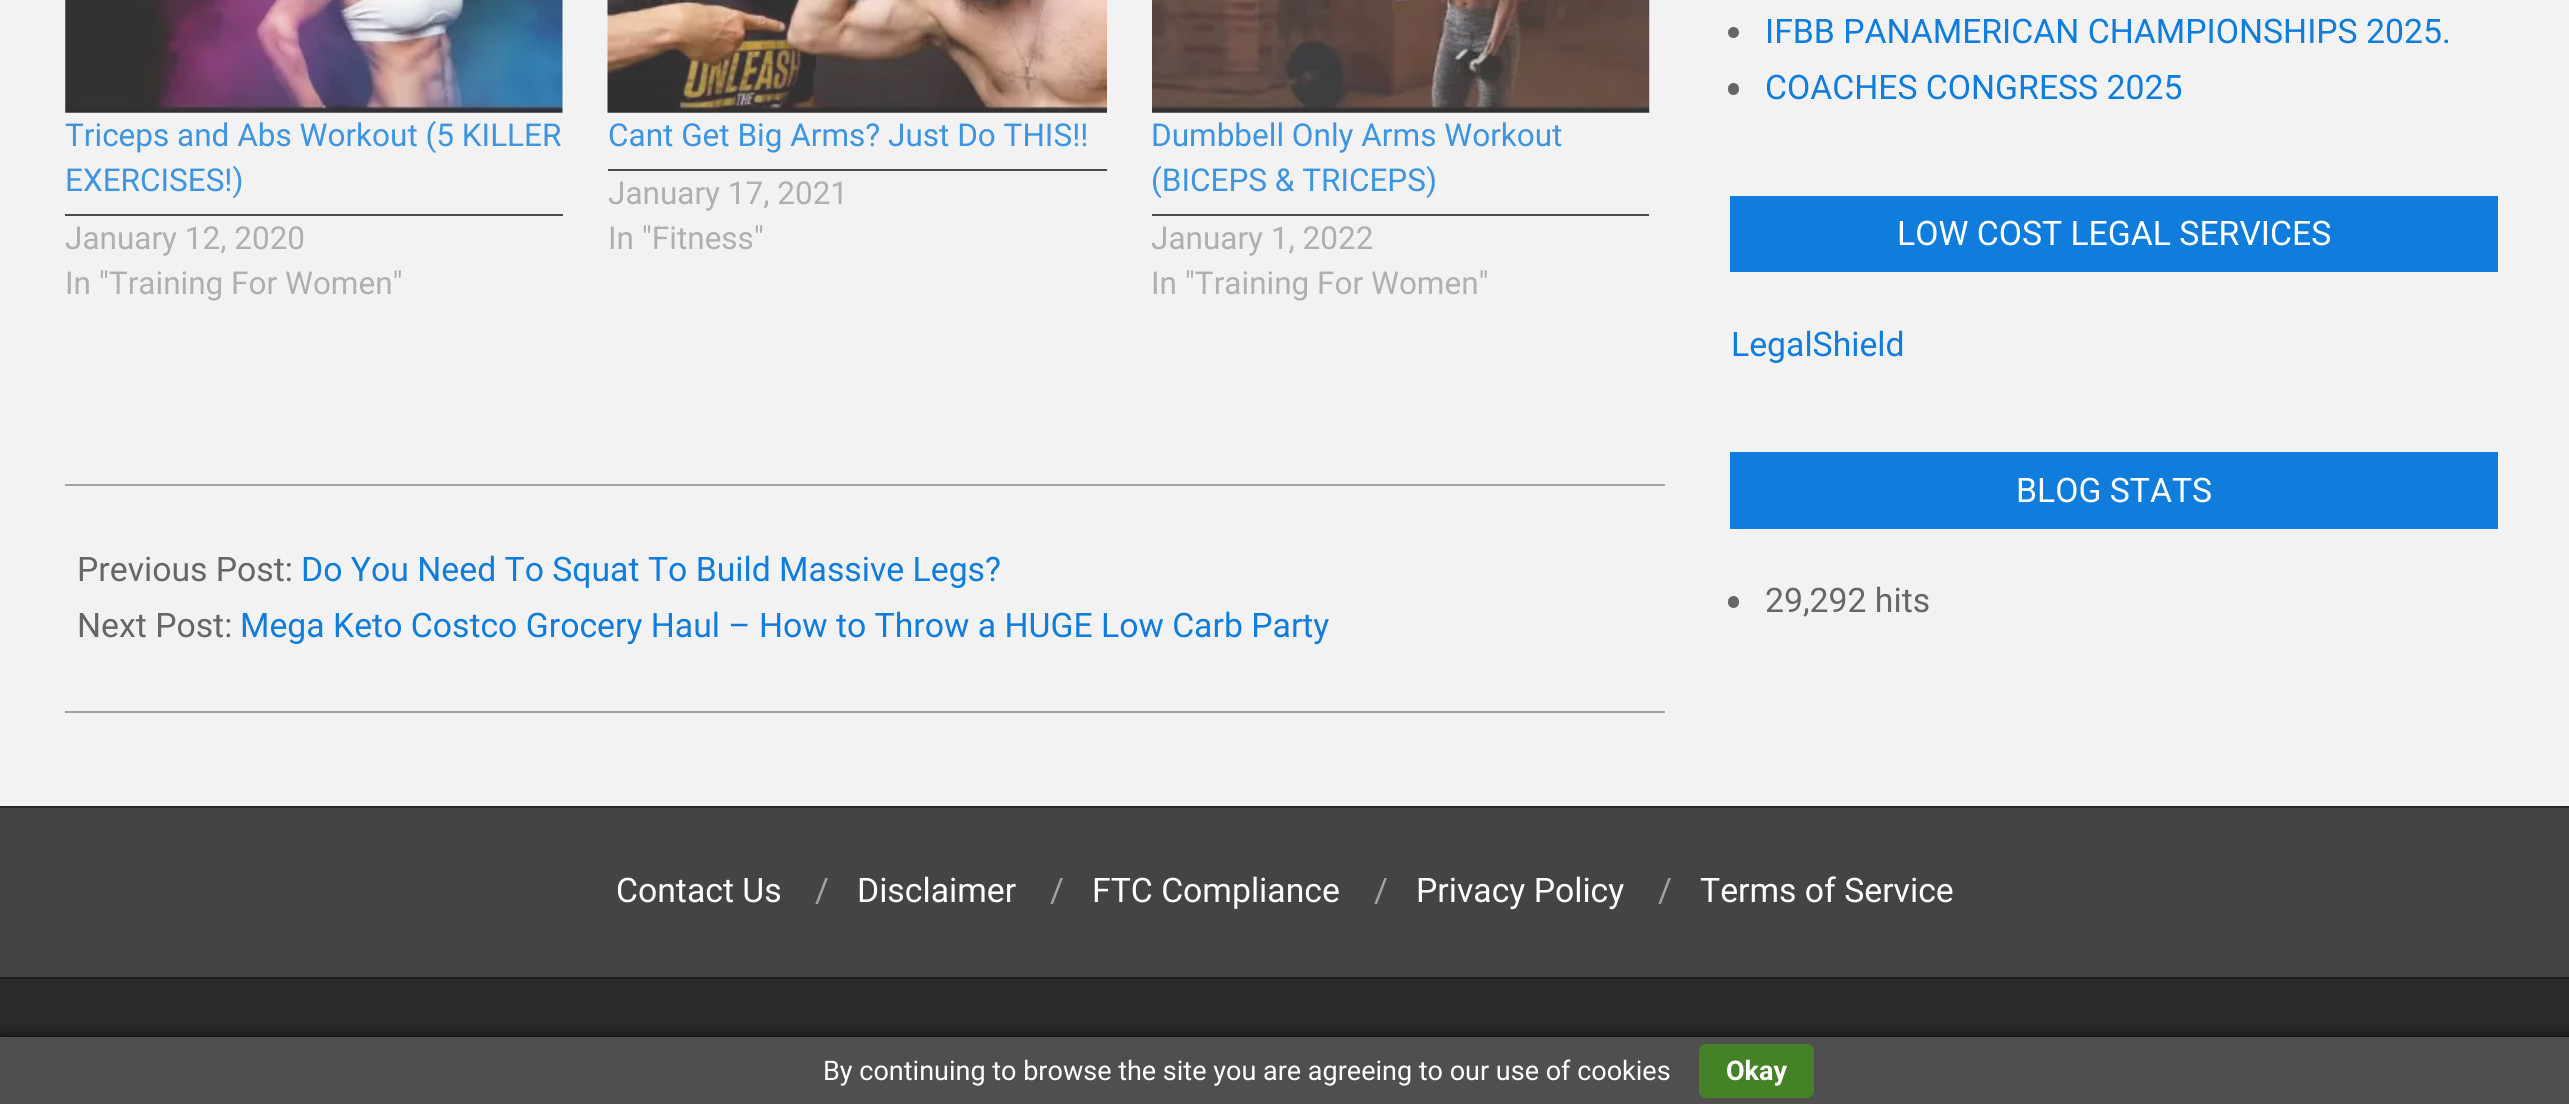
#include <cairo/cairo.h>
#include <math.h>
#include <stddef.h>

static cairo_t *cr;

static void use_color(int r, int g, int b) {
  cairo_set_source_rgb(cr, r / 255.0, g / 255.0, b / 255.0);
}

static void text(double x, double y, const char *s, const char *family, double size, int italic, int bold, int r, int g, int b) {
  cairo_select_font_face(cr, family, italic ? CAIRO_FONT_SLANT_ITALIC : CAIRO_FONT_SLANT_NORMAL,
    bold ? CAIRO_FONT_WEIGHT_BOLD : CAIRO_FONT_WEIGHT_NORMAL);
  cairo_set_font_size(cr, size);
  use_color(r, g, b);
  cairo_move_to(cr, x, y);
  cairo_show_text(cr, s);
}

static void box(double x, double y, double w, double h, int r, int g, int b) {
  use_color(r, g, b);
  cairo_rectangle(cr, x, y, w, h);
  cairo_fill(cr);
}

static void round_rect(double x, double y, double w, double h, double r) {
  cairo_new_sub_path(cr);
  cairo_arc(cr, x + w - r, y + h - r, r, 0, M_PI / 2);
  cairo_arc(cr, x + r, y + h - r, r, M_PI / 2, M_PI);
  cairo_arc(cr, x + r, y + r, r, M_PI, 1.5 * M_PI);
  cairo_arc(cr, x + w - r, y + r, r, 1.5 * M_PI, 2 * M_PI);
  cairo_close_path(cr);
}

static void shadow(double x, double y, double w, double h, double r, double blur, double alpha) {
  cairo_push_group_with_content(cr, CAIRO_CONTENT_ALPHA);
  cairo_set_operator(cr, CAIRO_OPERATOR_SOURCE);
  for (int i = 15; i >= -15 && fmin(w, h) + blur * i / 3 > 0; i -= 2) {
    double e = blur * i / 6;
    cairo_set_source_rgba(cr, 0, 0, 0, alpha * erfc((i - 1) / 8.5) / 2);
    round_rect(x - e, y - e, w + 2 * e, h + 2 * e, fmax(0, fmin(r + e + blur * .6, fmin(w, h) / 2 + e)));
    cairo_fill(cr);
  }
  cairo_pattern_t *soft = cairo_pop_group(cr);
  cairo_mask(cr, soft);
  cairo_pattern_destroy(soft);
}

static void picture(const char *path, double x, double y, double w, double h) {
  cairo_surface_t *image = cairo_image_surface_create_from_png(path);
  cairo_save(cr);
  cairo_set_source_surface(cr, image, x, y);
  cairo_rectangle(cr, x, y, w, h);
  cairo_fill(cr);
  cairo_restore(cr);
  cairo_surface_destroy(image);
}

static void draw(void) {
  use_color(42, 42, 42);
  cairo_paint(cr);
  box(0, 0, 2569, 806, 242, 242, 242);
  box(65, 484, 1600, 2, 162, 162, 162);
  picture("img_01.png", 65, 0, 498, 113);
  box(65, 214, 498, 2, 76, 76, 76);
  picture("img_02.png", 607, 0, 500, 113);
  box(608, 169, 499, 2, 76, 76, 76);
  picture("img_03.png", 1152, 0, 498, 113);
  box(1152, 214, 497, 2, 76, 76, 76);
  box(65, 711, 1600, 2, 162, 162, 162);
  use_color(102, 102, 102);
  cairo_arc(cr, 1733.5, 32.5, 5.5, 0, 2 * M_PI);
  cairo_fill(cr);
  round_rect(1728, 83, 11, 12, 5.5);
  cairo_fill(cr);
  box(1730, 196, 768, 76, 16, 124, 219);
  box(1730, 452, 768, 77, 16, 124, 219);
  use_color(102, 102, 102);
  round_rect(1728, 596, 11, 12, 5.5);
  cairo_fill(cr);
  box(0, 806, 2569, 2, 38, 38, 38);
  box(0, 808, 2569, 169, 68, 68, 68);
  box(0, 977, 2569, 2, 28, 28, 28);
  use_color(0, 0, 0);
  shadow(0, 1037, 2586, 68, 0, 5.5, 1);
  box(0, 1037, 2569, 67, 79, 79, 79);
  use_color(69, 130, 39);
  round_rect(1699, 1044, 115, 54, 7);
  cairo_fill(cr);
  text(65, 146, "Triceps and Abs Workout (5 KILLER", "Roboto", 31.5, 0, 0, 61, 148, 224);
  text(65, 191, "EXERCISES!)", "Roboto", 31.5, 0, 0, 61, 148, 224);
  text(65, 249, "January 12, 2020", "Roboto", 31.5, 0, 0, 175, 175, 175);
  text(65, 294, "In \"Training For Women\"", "Roboto", 31.5, 0, 0, 175, 175, 175);
  text(608, 146, "Cant Get Big Arms? Just Do THIS!!", "Roboto", 31.5, 0, 0, 61, 148, 224);
  text(608, 204, "January 17, 2021", "Roboto", 31.5, 0, 0, 175, 175, 175);
  text(608, 249, "In \"Fitness\"", "Roboto", 31.5, 0, 0, 175, 175, 175);
  text(1151, 146, "Dumbbell Only Arms Workout", "Roboto", 31.5, 0, 0, 61, 148, 224);
  text(1151, 191, "(BICEPS & TRICEPS)", "Roboto", 31.5, 0, 0, 61, 148, 224);
  text(1151, 249, "January 1, 2022", "Roboto", 31.5, 0, 0, 175, 175, 175);
  text(1151, 294, "In \"Training For Women\"", "Roboto", 31.5, 0, 0, 175, 175, 175);
  text(77, 581, "Previous Post:", "Roboto", 33.75, 0, 0, 102, 102, 102);
  text(301, 581, "Do You Need To Squat To Build Massive Legs?", "Roboto", 33.75, 0, 0, 16, 124, 219);
  text(77, 637, "Next Post:", "Roboto", 33.75, 0, 0, 102, 102, 102);
  text(240, 637, "Mega Keto Costco Grocery Haul – How to Throw a HUGE Low Carb Party", "Roboto", 33.75, 0, 0, 16, 124, 219);
  text(1765, 43, "IFBB PANAMERICAN CHAMPIONSHIPS 2025.", "Roboto", 33.75, 0, 0, 16, 124, 219);
  text(1765, 99, "COACHES CONGRESS 2025", "Roboto", 33.75, 0, 0, 16, 124, 219);
  text(1897, 245, "LOW COST LEGAL SERVICES", "Roboto", 33.75, 0, 0, 255, 255, 255);
  text(1731, 356, "LegalShield", "Roboto", 33.75, 0, 0, 16, 124, 219);
  text(2016, 502, "BLOG STATS", "Roboto", 33.75, 0, 0, 255, 255, 255);
  text(1765, 612, "29,292 hits", "Roboto", 33.75, 0, 0, 102, 102, 102);
  text(616, 902, "Contact Us", "Roboto", 33.75, 0, 0, 255, 255, 255);
  text(815, 902, "/", "Roboto", 33.75, 0, 0, 162, 162, 162);
  text(857, 902, "Disclaimer", "Roboto", 33.75, 0, 0, 255, 255, 255);
  text(1050, 902, "/", "Roboto", 33.75, 0, 0, 162, 162, 162);
  text(1092, 902, "FTC Compliance", "Roboto", 33.75, 0, 0, 255, 255, 255);
  text(1374, 902, "/", "Roboto", 33.75, 0, 0, 162, 162, 162);
  text(1416, 902, "Privacy Policy", "Roboto", 33.75, 0, 0, 255, 255, 255);
  text(1658, 902, "/", "Roboto", 33.75, 0, 0, 162, 162, 162);
  text(1700, 902, "Terms of Service", "Roboto", 33.75, 0, 0, 255, 255, 255);
  text(823, 1080, "By continuing to browse the site you are agreeing to our use of cookies", "Roboto", 27, 0, 0, 255, 255, 255);
  text(1726, 1080, "Okay", "Roboto", 27, 0, 1, 255, 255, 255);
}

int main(void) {
  cairo_surface_t *surface = cairo_image_surface_create(CAIRO_FORMAT_RGB24, 2569, 1104);
  cr = cairo_create(surface);
  cairo_font_options_t *options = cairo_font_options_create();
  cairo_font_options_set_hint_metrics(options, CAIRO_HINT_METRICS_OFF);
  cairo_font_options_set_hint_style(options, CAIRO_HINT_STYLE_NONE);
  cairo_set_font_options(cr, options);
  cairo_set_miter_limit(cr, 4);
  draw();
  cairo_surface_write_to_png(surface, "out.png");
  cairo_font_options_destroy(options);
  cairo_destroy(cr);
  cairo_surface_destroy(surface);
  return 0;
}
